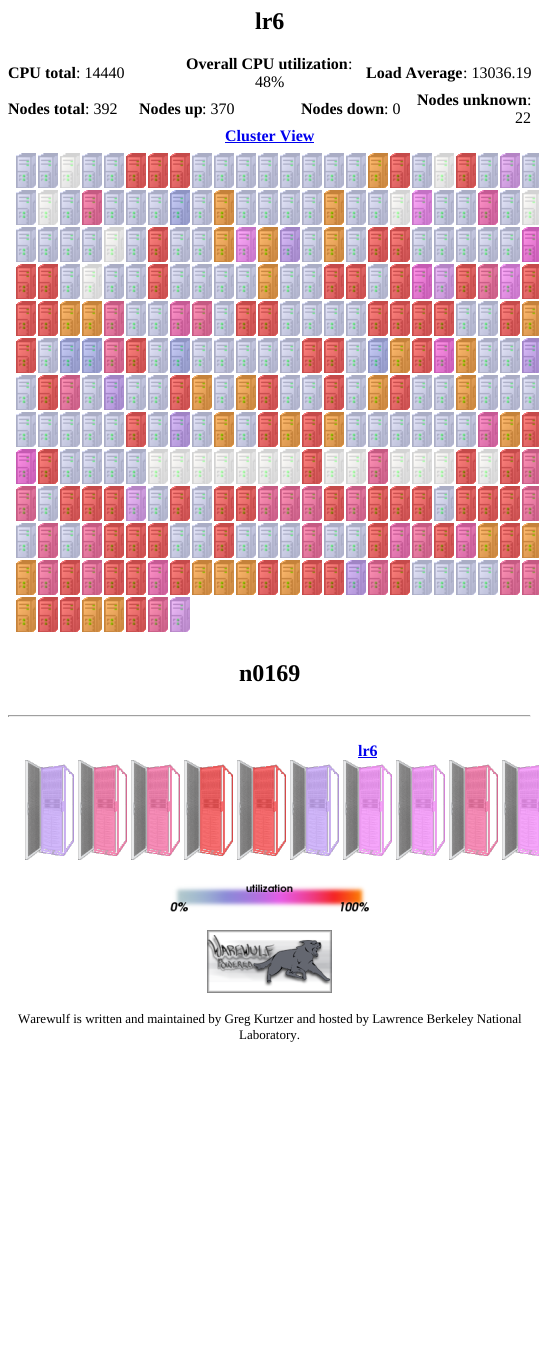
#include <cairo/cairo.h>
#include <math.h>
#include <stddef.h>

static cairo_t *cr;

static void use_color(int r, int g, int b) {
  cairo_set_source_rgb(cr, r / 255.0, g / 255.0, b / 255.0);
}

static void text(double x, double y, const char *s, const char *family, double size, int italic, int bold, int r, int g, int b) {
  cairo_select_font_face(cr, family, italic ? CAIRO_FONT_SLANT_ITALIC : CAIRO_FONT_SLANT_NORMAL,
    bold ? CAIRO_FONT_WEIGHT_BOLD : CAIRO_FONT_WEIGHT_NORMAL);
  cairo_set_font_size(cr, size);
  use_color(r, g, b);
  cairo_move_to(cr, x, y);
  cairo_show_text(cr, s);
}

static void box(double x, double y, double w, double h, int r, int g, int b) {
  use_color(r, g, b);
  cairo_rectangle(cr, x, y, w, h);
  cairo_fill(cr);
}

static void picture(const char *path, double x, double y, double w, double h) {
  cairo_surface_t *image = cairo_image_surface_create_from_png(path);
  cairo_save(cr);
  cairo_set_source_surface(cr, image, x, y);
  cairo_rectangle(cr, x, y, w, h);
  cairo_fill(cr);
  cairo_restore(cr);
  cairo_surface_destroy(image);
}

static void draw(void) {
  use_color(255, 255, 255);
  cairo_paint(cr);
  box(225, 142, 89, 1, 0, 0, 238);
  picture("img_01.png", 16, 153, 20, 35);
  picture("img_01.png", 38, 153, 20, 35);
  picture("img_02.png", 60, 153, 20, 35);
  picture("img_01.png", 82, 153, 20, 35);
  picture("img_01.png", 104, 153, 20, 35);
  picture("img_03.png", 126, 153, 20, 35);
  picture("img_03.png", 148, 153, 20, 35);
  picture("img_03.png", 170, 153, 20, 35);
  picture("img_01.png", 192, 153, 20, 35);
  picture("img_01.png", 214, 153, 20, 35);
  picture("img_01.png", 236, 153, 20, 35);
  picture("img_01.png", 258, 153, 20, 35);
  picture("img_01.png", 280, 153, 20, 35);
  picture("img_01.png", 302, 153, 20, 35);
  picture("img_01.png", 324, 153, 20, 35);
  picture("img_01.png", 346, 153, 20, 35);
  picture("img_04.png", 368, 153, 20, 35);
  picture("img_03.png", 390, 153, 20, 35);
  picture("img_01.png", 412, 153, 20, 35);
  picture("img_02.png", 434, 153, 20, 35);
  picture("img_03.png", 456, 153, 20, 35);
  picture("img_01.png", 478, 153, 20, 35);
  picture("img_05.png", 500, 153, 20, 35);
  picture("img_06.png", 522, 153, 17, 35);
  picture("img_01.png", 16, 190, 20, 35);
  picture("img_02.png", 38, 190, 20, 35);
  picture("img_01.png", 60, 190, 20, 35);
  picture("img_07.png", 82, 190, 20, 35);
  picture("img_01.png", 104, 190, 20, 35);
  picture("img_01.png", 126, 190, 20, 35);
  picture("img_01.png", 148, 190, 20, 35);
  picture("img_08.png", 170, 190, 20, 35);
  picture("img_01.png", 192, 190, 20, 35);
  picture("img_04.png", 214, 190, 20, 35);
  picture("img_01.png", 236, 190, 20, 35);
  picture("img_01.png", 258, 190, 20, 35);
  picture("img_01.png", 280, 190, 20, 35);
  picture("img_01.png", 302, 190, 20, 35);
  picture("img_04.png", 324, 190, 20, 35);
  picture("img_01.png", 346, 190, 20, 35);
  picture("img_01.png", 368, 190, 20, 35);
  picture("img_02.png", 390, 190, 20, 35);
  picture("img_09.png", 412, 190, 20, 35);
  picture("img_01.png", 434, 190, 20, 35);
  picture("img_01.png", 456, 190, 20, 35);
  picture("img_10.png", 478, 190, 20, 35);
  picture("img_01.png", 500, 190, 20, 35);
  picture("img_11.png", 522, 190, 17, 35);
  picture("img_01.png", 16, 227, 20, 35);
  picture("img_01.png", 38, 227, 20, 35);
  picture("img_01.png", 60, 227, 20, 35);
  picture("img_01.png", 82, 227, 20, 35);
  picture("img_02.png", 104, 227, 20, 35);
  picture("img_01.png", 126, 227, 20, 35);
  picture("img_03.png", 148, 227, 20, 35);
  picture("img_01.png", 170, 227, 20, 35);
  picture("img_01.png", 192, 227, 20, 35);
  picture("img_04.png", 214, 227, 20, 35);
  picture("img_09.png", 236, 227, 20, 35);
  picture("img_04.png", 258, 227, 20, 35);
  picture("img_12.png", 280, 227, 20, 35);
  picture("img_01.png", 302, 227, 20, 35);
  picture("img_04.png", 324, 227, 20, 35);
  picture("img_01.png", 346, 227, 20, 35);
  picture("img_03.png", 368, 227, 20, 35);
  picture("img_03.png", 390, 227, 20, 35);
  picture("img_01.png", 412, 227, 20, 35);
  picture("img_01.png", 434, 227, 20, 35);
  picture("img_01.png", 456, 227, 20, 35);
  picture("img_01.png", 478, 227, 20, 35);
  picture("img_01.png", 500, 227, 20, 35);
  picture("img_13.png", 522, 227, 17, 35);
  picture("img_03.png", 16, 264, 20, 35);
  picture("img_03.png", 38, 264, 20, 35);
  picture("img_01.png", 60, 264, 20, 35);
  picture("img_02.png", 82, 264, 20, 35);
  picture("img_01.png", 104, 264, 20, 35);
  picture("img_01.png", 126, 264, 20, 35);
  picture("img_03.png", 148, 264, 20, 35);
  picture("img_01.png", 170, 264, 20, 35);
  picture("img_01.png", 192, 264, 20, 35);
  picture("img_01.png", 214, 264, 20, 35);
  picture("img_01.png", 236, 264, 20, 35);
  picture("img_04.png", 258, 264, 20, 35);
  picture("img_01.png", 280, 264, 20, 35);
  picture("img_01.png", 302, 264, 20, 35);
  picture("img_03.png", 324, 264, 20, 35);
  picture("img_03.png", 346, 264, 20, 35);
  picture("img_01.png", 368, 264, 20, 35);
  picture("img_03.png", 390, 264, 20, 35);
  picture("img_14.png", 412, 264, 20, 35);
  picture("img_05.png", 434, 264, 20, 35);
  picture("img_03.png", 456, 264, 20, 35);
  picture("img_07.png", 478, 264, 20, 35);
  picture("img_09.png", 500, 264, 20, 35);
  picture("img_15.png", 522, 264, 17, 35);
  picture("img_03.png", 16, 301, 20, 35);
  picture("img_03.png", 38, 301, 20, 35);
  picture("img_04.png", 60, 301, 20, 35);
  picture("img_04.png", 82, 301, 20, 35);
  picture("img_07.png", 104, 301, 20, 35);
  picture("img_01.png", 126, 301, 20, 35);
  picture("img_01.png", 148, 301, 20, 35);
  picture("img_10.png", 170, 301, 20, 35);
  picture("img_07.png", 192, 301, 20, 35);
  picture("img_01.png", 214, 301, 20, 35);
  picture("img_03.png", 236, 301, 20, 35);
  picture("img_03.png", 258, 301, 20, 35);
  picture("img_01.png", 280, 301, 20, 35);
  picture("img_01.png", 302, 301, 20, 35);
  picture("img_01.png", 324, 301, 20, 35);
  picture("img_01.png", 346, 301, 20, 35);
  picture("img_03.png", 368, 301, 20, 35);
  picture("img_03.png", 390, 301, 20, 35);
  picture("img_03.png", 412, 301, 20, 35);
  picture("img_03.png", 434, 301, 20, 35);
  picture("img_01.png", 456, 301, 20, 35);
  picture("img_01.png", 478, 301, 20, 35);
  picture("img_03.png", 500, 301, 20, 35);
  picture("img_16.png", 522, 301, 17, 35);
  picture("img_03.png", 16, 338, 20, 35);
  picture("img_01.png", 38, 338, 20, 35);
  picture("img_08.png", 60, 338, 20, 35);
  picture("img_08.png", 82, 338, 20, 35);
  picture("img_07.png", 104, 338, 20, 35);
  picture("img_03.png", 126, 338, 20, 35);
  picture("img_01.png", 148, 338, 20, 35);
  picture("img_08.png", 170, 338, 20, 35);
  picture("img_01.png", 192, 338, 20, 35);
  picture("img_01.png", 214, 338, 20, 35);
  picture("img_01.png", 236, 338, 20, 35);
  picture("img_01.png", 258, 338, 20, 35);
  picture("img_01.png", 280, 338, 20, 35);
  picture("img_03.png", 302, 338, 20, 35);
  picture("img_03.png", 324, 338, 20, 35);
  picture("img_01.png", 346, 338, 20, 35);
  picture("img_08.png", 368, 338, 20, 35);
  picture("img_04.png", 390, 338, 20, 35);
  picture("img_03.png", 412, 338, 20, 35);
  picture("img_14.png", 434, 338, 20, 35);
  picture("img_04.png", 456, 338, 20, 35);
  picture("img_01.png", 478, 338, 20, 35);
  picture("img_01.png", 500, 338, 20, 35);
  picture("img_17.png", 522, 338, 17, 35);
  picture("img_01.png", 16, 375, 20, 35);
  picture("img_03.png", 38, 375, 20, 35);
  picture("img_07.png", 60, 375, 20, 35);
  picture("img_01.png", 82, 375, 20, 35);
  picture("img_12.png", 104, 375, 20, 35);
  picture("img_01.png", 126, 375, 20, 35);
  picture("img_01.png", 148, 375, 20, 35);
  picture("img_03.png", 170, 375, 20, 35);
  picture("img_04.png", 192, 375, 20, 35);
  picture("img_01.png", 214, 375, 20, 35);
  picture("img_04.png", 236, 375, 20, 35);
  picture("img_03.png", 258, 375, 20, 35);
  picture("img_01.png", 280, 375, 20, 35);
  picture("img_01.png", 302, 375, 20, 35);
  picture("img_03.png", 324, 375, 20, 35);
  picture("img_01.png", 346, 375, 20, 35);
  picture("img_04.png", 368, 375, 20, 35);
  picture("img_03.png", 390, 375, 20, 35);
  picture("img_01.png", 412, 375, 20, 35);
  picture("img_01.png", 434, 375, 20, 35);
  picture("img_04.png", 456, 375, 20, 35);
  picture("img_01.png", 478, 375, 20, 35);
  picture("img_01.png", 500, 375, 20, 35);
  picture("img_06.png", 522, 375, 17, 35);
  picture("img_01.png", 16, 412, 20, 35);
  picture("img_01.png", 38, 412, 20, 35);
  picture("img_01.png", 60, 412, 20, 35);
  picture("img_01.png", 82, 412, 20, 35);
  picture("img_01.png", 104, 412, 20, 35);
  picture("img_03.png", 126, 412, 20, 35);
  picture("img_01.png", 148, 412, 20, 35);
  picture("img_12.png", 170, 412, 20, 35);
  picture("img_01.png", 192, 412, 20, 35);
  picture("img_04.png", 214, 412, 20, 35);
  picture("img_01.png", 236, 412, 20, 35);
  picture("img_03.png", 258, 412, 20, 35);
  picture("img_04.png", 280, 412, 20, 35);
  picture("img_03.png", 302, 412, 20, 35);
  picture("img_04.png", 324, 412, 20, 35);
  picture("img_01.png", 346, 412, 20, 35);
  picture("img_01.png", 368, 412, 20, 35);
  picture("img_01.png", 390, 412, 20, 35);
  picture("img_01.png", 412, 412, 20, 35);
  picture("img_01.png", 434, 412, 20, 35);
  picture("img_01.png", 456, 412, 20, 35);
  picture("img_10.png", 478, 412, 20, 35);
  picture("img_04.png", 500, 412, 20, 35);
  picture("img_15.png", 522, 412, 17, 35);
  picture("img_14.png", 16, 449, 20, 35);
  picture("img_03.png", 38, 449, 20, 35);
  picture("img_01.png", 60, 449, 20, 35);
  picture("img_01.png", 82, 449, 20, 35);
  picture("img_01.png", 104, 449, 20, 35);
  picture("img_01.png", 126, 449, 20, 35);
  picture("img_02.png", 148, 449, 20, 35);
  picture("img_02.png", 170, 449, 20, 35);
  picture("img_02.png", 192, 449, 20, 35);
  picture("img_02.png", 214, 449, 20, 35);
  picture("img_02.png", 236, 449, 20, 35);
  picture("img_02.png", 258, 449, 20, 35);
  picture("img_02.png", 280, 449, 20, 35);
  picture("img_03.png", 302, 449, 20, 35);
  picture("img_02.png", 324, 449, 20, 35);
  picture("img_02.png", 346, 449, 20, 35);
  picture("img_07.png", 368, 449, 20, 35);
  picture("img_02.png", 390, 449, 20, 35);
  picture("img_02.png", 412, 449, 20, 35);
  picture("img_02.png", 434, 449, 20, 35);
  picture("img_03.png", 456, 449, 20, 35);
  picture("img_02.png", 478, 449, 20, 35);
  picture("img_03.png", 500, 449, 20, 35);
  picture("img_18.png", 522, 449, 17, 35);
  picture("img_07.png", 16, 486, 20, 35);
  picture("img_01.png", 38, 486, 20, 35);
  picture("img_03.png", 60, 486, 20, 35);
  picture("img_03.png", 82, 486, 20, 35);
  picture("img_03.png", 104, 486, 20, 35);
  picture("img_05.png", 126, 486, 20, 35);
  picture("img_01.png", 148, 486, 20, 35);
  picture("img_03.png", 170, 486, 20, 35);
  picture("img_01.png", 192, 486, 20, 35);
  picture("img_03.png", 214, 486, 20, 35);
  picture("img_03.png", 236, 486, 20, 35);
  picture("img_07.png", 258, 486, 20, 35);
  picture("img_07.png", 280, 486, 20, 35);
  picture("img_07.png", 302, 486, 20, 35);
  picture("img_03.png", 324, 486, 20, 35);
  picture("img_07.png", 346, 486, 20, 35);
  picture("img_03.png", 368, 486, 20, 35);
  picture("img_03.png", 390, 486, 20, 35);
  picture("img_03.png", 412, 486, 20, 35);
  picture("img_01.png", 434, 486, 20, 35);
  picture("img_03.png", 456, 486, 20, 35);
  picture("img_03.png", 478, 486, 20, 35);
  picture("img_03.png", 500, 486, 20, 35);
  picture("img_18.png", 522, 486, 17, 35);
  picture("img_01.png", 16, 523, 20, 35);
  picture("img_07.png", 38, 523, 20, 35);
  picture("img_01.png", 60, 523, 20, 35);
  picture("img_07.png", 82, 523, 20, 35);
  picture("img_03.png", 104, 523, 20, 35);
  picture("img_03.png", 126, 523, 20, 35);
  picture("img_03.png", 148, 523, 20, 35);
  picture("img_01.png", 170, 523, 20, 35);
  picture("img_01.png", 192, 523, 20, 35);
  picture("img_03.png", 214, 523, 20, 35);
  picture("img_01.png", 236, 523, 20, 35);
  picture("img_01.png", 258, 523, 20, 35);
  picture("img_01.png", 280, 523, 20, 35);
  picture("img_07.png", 302, 523, 20, 35);
  picture("img_01.png", 324, 523, 20, 35);
  picture("img_01.png", 346, 523, 20, 35);
  picture("img_03.png", 368, 523, 20, 35);
  picture("img_10.png", 390, 523, 20, 35);
  picture("img_07.png", 412, 523, 20, 35);
  picture("img_03.png", 434, 523, 20, 35);
  picture("img_10.png", 456, 523, 20, 35);
  picture("img_04.png", 478, 523, 20, 35);
  picture("img_03.png", 500, 523, 20, 35);
  picture("img_16.png", 522, 523, 17, 35);
  picture("img_04.png", 16, 560, 20, 35);
  picture("img_07.png", 38, 560, 20, 35);
  picture("img_03.png", 60, 560, 20, 35);
  picture("img_07.png", 82, 560, 20, 35);
  picture("img_03.png", 104, 560, 20, 35);
  picture("img_03.png", 126, 560, 20, 35);
  picture("img_10.png", 148, 560, 20, 35);
  picture("img_03.png", 170, 560, 20, 35);
  picture("img_04.png", 192, 560, 20, 35);
  picture("img_04.png", 214, 560, 20, 35);
  picture("img_04.png", 236, 560, 20, 35);
  picture("img_03.png", 258, 560, 20, 35);
  picture("img_04.png", 280, 560, 20, 35);
  picture("img_03.png", 302, 560, 20, 35);
  picture("img_03.png", 324, 560, 20, 35);
  picture("img_12.png", 346, 560, 20, 35);
  picture("img_07.png", 368, 560, 20, 35);
  picture("img_03.png", 390, 560, 20, 35);
  picture("img_01.png", 412, 560, 20, 35);
  picture("img_01.png", 434, 560, 20, 35);
  picture("img_01.png", 456, 560, 20, 35);
  picture("img_01.png", 478, 560, 20, 35);
  picture("img_07.png", 500, 560, 20, 35);
  picture("img_18.png", 522, 560, 17, 35);
  picture("img_04.png", 16, 597, 20, 35);
  picture("img_03.png", 38, 597, 20, 35);
  picture("img_03.png", 60, 597, 20, 35);
  picture("img_04.png", 82, 597, 20, 35);
  picture("img_04.png", 104, 597, 20, 35);
  picture("img_03.png", 126, 597, 20, 35);
  picture("img_07.png", 148, 597, 20, 35);
  picture("img_05.png", 170, 597, 20, 35);
  box(8, 715, 523, 1, 159, 159, 159);
  box(530, 715, 1, 2, 238, 238, 238);
  box(8, 716, 523, 1, 238, 238, 238);
  box(8, 715, 1, 2, 159, 159, 159);
  box(358, 757, 19, 1, 0, 0, 238);
  picture("img_19.png", 25, 760, 49, 100);
  picture("img_20.png", 78, 760, 49, 100);
  picture("img_20.png", 131, 760, 49, 100);
  picture("img_21.png", 184, 760, 49, 100);
  picture("img_21.png", 237, 760, 49, 100);
  picture("img_19.png", 290, 760, 49, 100);
  picture("img_22.png", 343, 760, 49, 100);
  picture("img_22.png", 396, 760, 49, 100);
  picture("img_20.png", 449, 760, 49, 100);
  picture("img_23.png", 502, 760, 37, 100);
  picture("img_24.png", 170, 884, 199, 28);
  picture("img_25.png", 207, 930, 125, 63);
  text(255, 29, "lr6", "Liberation Serif", 24, 0, 1, 0, 0, 0);
  text(8, 78, "CPU total", "Liberation Serif", 16, 0, 1, 0, 0, 0);
  text(76, 78, ": 14440", "Liberation Serif", 16, 0, 0, 0, 0, 0);
  text(186, 69, "Overall CPU utilization", "Liberation Serif", 16, 0, 1, 0, 0, 0);
  text(348, 69, ":", "Liberation Serif", 16, 0, 0, 0, 0, 0);
  text(255, 87, "48%", "Liberation Serif", 16, 0, 0, 0, 0, 0);
  text(366, 78, "Load Average", "Liberation Serif", 16, 0, 1, 0, 0, 0);
  text(463, 78, ": 13036.19", "Liberation Serif", 16, 0, 0, 0, 0, 0);
  text(8, 114, "Nodes total", "Liberation Serif", 16, 0, 1, 0, 0, 0);
  text(85, 114, ": 392", "Liberation Serif", 16, 0, 0, 0, 0, 0);
  text(139, 114, "Nodes up", "Liberation Serif", 16, 0, 1, 0, 0, 0);
  text(202, 114, ": 370", "Liberation Serif", 16, 0, 0, 0, 0, 0);
  text(301, 114, "Nodes down", "Liberation Serif", 16, 0, 1, 0, 0, 0);
  text(384, 114, ": 0", "Liberation Serif", 16, 0, 0, 0, 0, 0);
  text(417, 105, "Nodes unknown", "Liberation Serif", 16, 0, 1, 0, 0, 0);
  text(527, 105, ":", "Liberation Serif", 16, 0, 0, 0, 0, 0);
  text(515, 123, "22", "Liberation Serif", 16, 0, 0, 0, 0, 0);
  text(225, 141, "Cluster View", "Liberation Serif", 16, 0, 1, 0, 0, 238);
  text(239, 681, "n0169", "Liberation Serif", 24, 0, 1, 0, 0, 0);
  text(358, 756, "lr6", "Liberation Serif", 16, 0, 1, 0, 0, 238);
  text(18, 1023, "Warewulf is written and maintained by Greg Kurtzer and hosted by Lawrence Berkeley National", "Liberation Serif", 13, 0, 0, 0, 0, 0);
  text(239, 1039, "Laboratory.", "Liberation Serif", 13, 0, 0, 0, 0, 0);
}

int main(void) {
  cairo_surface_t *surface = cairo_image_surface_create(CAIRO_FORMAT_RGB24, 539, 1355);
  cr = cairo_create(surface);
  cairo_font_options_t *options = cairo_font_options_create();
  cairo_font_options_set_hint_metrics(options, CAIRO_HINT_METRICS_OFF);
  cairo_font_options_set_hint_style(options, CAIRO_HINT_STYLE_NONE);
  cairo_set_font_options(cr, options);
  cairo_set_miter_limit(cr, 4);
  draw();
  cairo_surface_write_to_png(surface, "out.png");
  cairo_font_options_destroy(options);
  cairo_destroy(cr);
  cairo_surface_destroy(surface);
  return 0;
}
